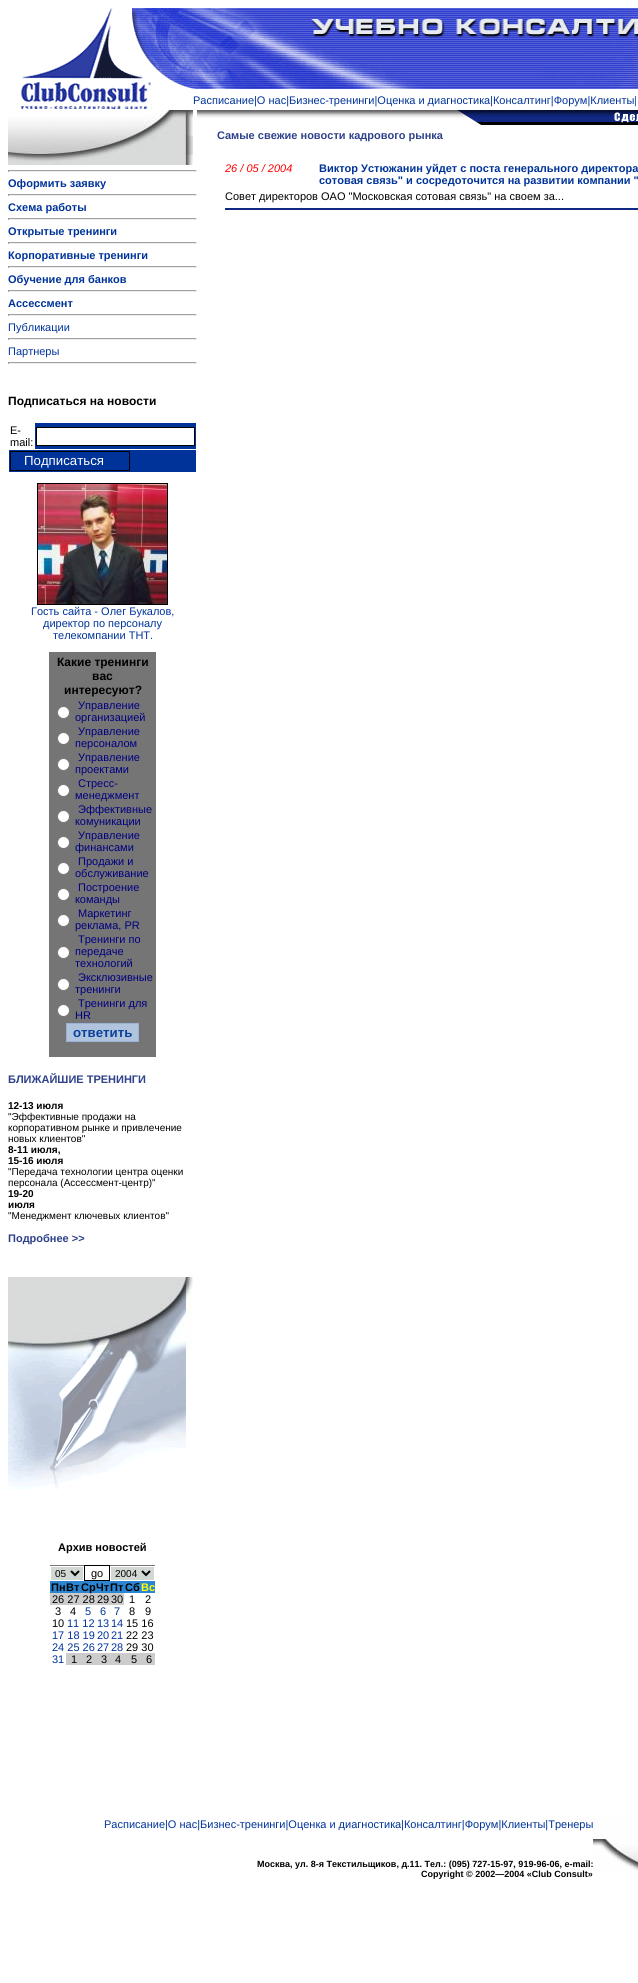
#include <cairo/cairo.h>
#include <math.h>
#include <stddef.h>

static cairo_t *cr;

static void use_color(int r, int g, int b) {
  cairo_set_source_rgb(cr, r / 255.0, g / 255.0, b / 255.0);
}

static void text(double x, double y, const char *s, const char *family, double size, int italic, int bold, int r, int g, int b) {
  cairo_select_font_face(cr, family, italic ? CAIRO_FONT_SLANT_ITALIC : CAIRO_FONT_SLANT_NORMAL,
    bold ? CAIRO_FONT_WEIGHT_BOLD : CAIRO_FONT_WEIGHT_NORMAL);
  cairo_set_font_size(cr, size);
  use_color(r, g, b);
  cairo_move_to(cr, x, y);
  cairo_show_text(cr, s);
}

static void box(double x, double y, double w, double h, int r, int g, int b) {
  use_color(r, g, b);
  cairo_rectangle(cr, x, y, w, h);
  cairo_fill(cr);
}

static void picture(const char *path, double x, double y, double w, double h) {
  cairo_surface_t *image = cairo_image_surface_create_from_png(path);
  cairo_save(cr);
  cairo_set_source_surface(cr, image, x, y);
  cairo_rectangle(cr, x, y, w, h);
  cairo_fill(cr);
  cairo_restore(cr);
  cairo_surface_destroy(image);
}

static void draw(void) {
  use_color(255, 255, 255);
  cairo_paint(cr);
  picture("img_01.png", 20, 8, 173, 101);
  picture("img_02.png", 193, 8, 445, 81);
  picture("img_03.png", 197, 110, 411, 15);
  picture("img_04.png", 608, 110, 30, 15);
  box(225, 208, 413, 2, 17, 40, 133);
  picture("img_05.png", 8, 110, 185, 55);
  box(8, 170, 189, 1, 159, 159, 159);
  box(196, 170, 1, 2, 238, 238, 238);
  box(8, 171, 189, 1, 238, 238, 238);
  box(8, 170, 1, 2, 159, 159, 159);
  box(8, 194, 189, 1, 159, 159, 159);
  box(196, 194, 1, 2, 238, 238, 238);
  box(8, 195, 189, 1, 238, 238, 238);
  box(8, 194, 1, 2, 159, 159, 159);
  box(8, 218, 189, 1, 159, 159, 159);
  box(196, 218, 1, 2, 238, 238, 238);
  box(8, 219, 189, 1, 238, 238, 238);
  box(8, 218, 1, 2, 159, 159, 159);
  box(8, 242, 189, 1, 159, 159, 159);
  box(196, 242, 1, 2, 238, 238, 238);
  box(8, 243, 189, 1, 238, 238, 238);
  box(8, 242, 1, 2, 159, 159, 159);
  box(8, 266, 189, 1, 159, 159, 159);
  box(196, 266, 1, 2, 238, 238, 238);
  box(8, 267, 189, 1, 238, 238, 238);
  box(8, 266, 1, 2, 159, 159, 159);
  box(8, 290, 189, 1, 159, 159, 159);
  box(196, 290, 1, 2, 238, 238, 238);
  box(8, 291, 189, 1, 238, 238, 238);
  box(8, 290, 1, 2, 159, 159, 159);
  box(8, 314, 189, 1, 159, 159, 159);
  box(196, 314, 1, 2, 238, 238, 238);
  box(8, 315, 189, 1, 238, 238, 238);
  box(8, 314, 1, 2, 159, 159, 159);
  box(8, 338, 189, 1, 159, 159, 159);
  box(196, 338, 1, 2, 238, 238, 238);
  box(8, 339, 189, 1, 238, 238, 238);
  box(8, 338, 1, 2, 159, 159, 159);
  box(8, 362, 189, 1, 159, 159, 159);
  box(196, 362, 1, 2, 238, 238, 238);
  box(8, 363, 189, 1, 238, 238, 238);
  box(8, 362, 1, 2, 159, 159, 159);
  box(35, 423, 161, 26, 0, 51, 153);
  use_color(255, 255, 255);
  cairo_rectangle(cr, 36.5, 427.5, 158, 18);
  cairo_fill_preserve(cr);
  use_color(0, 0, 0);
  cairo_set_line_width(cr, 1);
  cairo_stroke(cr);
  box(9, 450, 187, 22, 0, 51, 153);
  cairo_rectangle(cr, 10.5, 451.5, 119, 19);
  use_color(0, 0, 0);
  cairo_stroke(cr);
  cairo_rectangle(cr, 37.5, 483.5, 130, 121);
  cairo_stroke(cr);
  picture("img_06.png", 38, 484, 129, 120);
  box(49, 652, 107, 405, 117, 117, 117);
  use_color(255, 255, 255);
  cairo_arc(cr, 63.5, 712.5, 6, 0, 2 * M_PI);
  cairo_fill_preserve(cr);
  use_color(118, 118, 118);
  cairo_stroke(cr);
  use_color(255, 255, 255);
  cairo_arc(cr, 63.5, 738.5, 6, 0, 2 * M_PI);
  cairo_fill_preserve(cr);
  use_color(118, 118, 118);
  cairo_stroke(cr);
  use_color(255, 255, 255);
  cairo_arc(cr, 63.5, 764.5, 6, 0, 2 * M_PI);
  cairo_fill_preserve(cr);
  use_color(118, 118, 118);
  cairo_stroke(cr);
  use_color(255, 255, 255);
  cairo_arc(cr, 63.5, 790.5, 6, 0, 2 * M_PI);
  cairo_fill_preserve(cr);
  use_color(118, 118, 118);
  cairo_stroke(cr);
  use_color(255, 255, 255);
  cairo_arc(cr, 63.5, 816.5, 6, 0, 2 * M_PI);
  cairo_fill_preserve(cr);
  use_color(118, 118, 118);
  cairo_stroke(cr);
  use_color(255, 255, 255);
  cairo_arc(cr, 63.5, 842.5, 6, 0, 2 * M_PI);
  cairo_fill_preserve(cr);
  use_color(118, 118, 118);
  cairo_stroke(cr);
  use_color(255, 255, 255);
  cairo_arc(cr, 63.5, 868.5, 6, 0, 2 * M_PI);
  cairo_fill_preserve(cr);
  use_color(118, 118, 118);
  cairo_stroke(cr);
  use_color(255, 255, 255);
  cairo_arc(cr, 63.5, 894.5, 6, 0, 2 * M_PI);
  cairo_fill_preserve(cr);
  use_color(118, 118, 118);
  cairo_stroke(cr);
  use_color(255, 255, 255);
  cairo_arc(cr, 63.5, 920.5, 6, 0, 2 * M_PI);
  cairo_fill_preserve(cr);
  use_color(118, 118, 118);
  cairo_stroke(cr);
  use_color(255, 255, 255);
  cairo_arc(cr, 63.5, 952.5, 6, 0, 2 * M_PI);
  cairo_fill_preserve(cr);
  use_color(118, 118, 118);
  cairo_stroke(cr);
  use_color(255, 255, 255);
  cairo_arc(cr, 63.5, 984.5, 6, 0, 2 * M_PI);
  cairo_fill_preserve(cr);
  use_color(118, 118, 118);
  cairo_stroke(cr);
  use_color(255, 255, 255);
  cairo_arc(cr, 63.5, 1010.5, 6, 0, 2 * M_PI);
  cairo_fill_preserve(cr);
  use_color(118, 118, 118);
  cairo_stroke(cr);
  use_color(176, 196, 222);
  cairo_rectangle(cr, 66.5, 1023.5, 72, 18);
  cairo_fill_preserve(cr);
  use_color(155, 177, 214);
  cairo_stroke(cr);
  picture("img_07.png", 8, 1277, 185, 80);
  picture("img_08.png", 8, 1357, 178, 133);
  box(50, 1565, 105, 1, 119, 119, 119);
  box(51, 1567, 32, 13, 210, 216, 211);
  cairo_new_path(cr);
  cairo_move_to(cr, 71, 1571);
  cairo_line_to(cr, 75, 1575);
  cairo_line_to(cr, 79, 1571);
  use_color(0, 0, 0);
  cairo_set_line_width(cr, 2);
  cairo_stroke(cr);
  cairo_rectangle(cr, 84.5, 1565.5, 25, 15);
  cairo_set_line_width(cr, 1);
  cairo_stroke(cr);
  box(111, 1567, 43, 13, 210, 216, 211);
  cairo_new_path(cr);
  cairo_move_to(cr, 142, 1571);
  cairo_line_to(cr, 146, 1575);
  cairo_line_to(cr, 150, 1571);
  use_color(0, 0, 0);
  cairo_set_line_width(cr, 2);
  cairo_stroke(cr);
  box(50, 1581, 105, 12, 44, 133, 211);
  box(50, 1593, 74, 12, 204, 204, 204);
  box(66, 1653, 89, 12, 204, 204, 204);
  picture("img_09.png", 593, 1818, 45, 53);
  text(193, 104, "Расписание|О нас|Бизнес-тренинги|Оценка и диагностика|Консалтинг|Форум|Клиенты|", "Liberation Sans", 11, 0, 0, 0, 51, 153);
  text(217, 139, "Самые свежие новости кадрового рынка", "Liberation Sans", 11, 0, 1, 46, 65, 139);
  text(225, 172, "26 / 05 / 2004", "Liberation Sans", 11, 1, 0, 255, 0, 0);
  text(319, 172, "Виктор Устюжанин уйдет с поста генерального директора", "Liberation Sans", 11, 0, 1, 0, 51, 153);
  text(319, 184, "сотовая связь\" и сосредоточится на развитии компании \"", "Liberation Sans", 11, 0, 1, 0, 51, 153);
  text(225, 200, "Совет директоров ОАО \"Московская сотовая связь\" на своем за...", "Liberation Sans", 11, 0, 0, 0, 0, 0);
  text(8, 187, "Оформить заявку", "Liberation Sans", 11, 0, 1, 0, 51, 153);
  text(8, 211, "Схема работы", "Liberation Sans", 11, 0, 1, 0, 51, 153);
  text(8, 235, "Открытые тренинги", "Liberation Sans", 11, 0, 1, 0, 51, 153);
  text(8, 259, "Корпоративные тренинги", "Liberation Sans", 11, 0, 1, 0, 51, 153);
  text(8, 283, "Обучение для банков", "Liberation Sans", 11, 0, 1, 0, 51, 153);
  text(8, 307, "Ассессмент", "Liberation Sans", 11, 0, 1, 0, 51, 153);
  text(8, 331, "Публикации", "Liberation Sans", 11, 0, 0, 0, 51, 153);
  text(8, 355, "Партнеры", "Liberation Sans", 11, 0, 0, 0, 51, 153);
  text(8, 405, "Подписаться на новости", "Liberation Sans", 12, 0, 1, 0, 0, 0);
  text(10, 434, "E-", "Liberation Sans", 11, 0, 0, 0, 0, 0);
  text(10, 446, "mail:", "Liberation Sans", 11, 0, 0, 0, 0, 0);
  text(24, 465, "Подписаться", "Liberation Sans", 13.25, 0, 0, 255, 255, 255);
  text(31, 615, "Гость сайта - Олег Букалов,", "Liberation Sans", 11, 0, 0, 0, 51, 153);
  text(43, 627, "директор по персоналу", "Liberation Sans", 11, 0, 0, 0, 51, 153);
  text(53, 639, "телекомпании ТНТ.", "Liberation Sans", 11, 0, 0, 0, 51, 153);
  text(57, 666, "Какие тренинги", "Liberation Sans", 12, 0, 1, 0, 0, 0);
  text(92, 680, "вас", "Liberation Sans", 12, 0, 1, 0, 0, 0);
  text(64, 694, "интересуют?", "Liberation Sans", 12, 0, 1, 0, 0, 0);
  text(78, 709, "Управление", "Liberation Sans", 11, 0, 0, 0, 0, 128);
  text(75, 721, "организацией", "Liberation Sans", 11, 0, 0, 0, 0, 128);
  text(78, 735, "Управление", "Liberation Sans", 11, 0, 0, 0, 0, 128);
  text(75, 747, "персоналом", "Liberation Sans", 11, 0, 0, 0, 0, 128);
  text(78, 761, "Управление", "Liberation Sans", 11, 0, 0, 0, 0, 128);
  text(75, 773, "проектами", "Liberation Sans", 11, 0, 0, 0, 0, 128);
  text(78, 787, "Стресс-", "Liberation Sans", 11, 0, 0, 0, 0, 128);
  text(75, 799, "менеджмент", "Liberation Sans", 11, 0, 0, 0, 0, 128);
  text(78, 813, "Эффективные", "Liberation Sans", 11, 0, 0, 0, 0, 128);
  text(75, 825, "комуникации", "Liberation Sans", 11, 0, 0, 0, 0, 128);
  text(78, 839, "Управление", "Liberation Sans", 11, 0, 0, 0, 0, 128);
  text(75, 851, "финансами", "Liberation Sans", 11, 0, 0, 0, 0, 128);
  text(78, 865, "Продажи и", "Liberation Sans", 11, 0, 0, 0, 0, 128);
  text(75, 877, "обслуживание", "Liberation Sans", 11, 0, 0, 0, 0, 128);
  text(78, 891, "Построение", "Liberation Sans", 11, 0, 0, 0, 0, 128);
  text(75, 903, "команды", "Liberation Sans", 11, 0, 0, 0, 0, 128);
  text(78, 917, "Маркетинг", "Liberation Sans", 11, 0, 0, 0, 0, 128);
  text(75, 929, "реклама, PR", "Liberation Sans", 11, 0, 0, 0, 0, 128);
  text(78, 943, "Тренинги по", "Liberation Sans", 11, 0, 0, 0, 0, 128);
  text(75, 955, "передаче", "Liberation Sans", 11, 0, 0, 0, 0, 128);
  text(75, 967, "технологий", "Liberation Sans", 11, 0, 0, 0, 0, 128);
  text(78, 981, "Эксклюзивные", "Liberation Sans", 11, 0, 0, 0, 0, 128);
  text(75, 993, "тренинги", "Liberation Sans", 11, 0, 0, 0, 0, 128);
  text(78, 1007, "Тренинги для", "Liberation Sans", 11, 0, 0, 0, 0, 128);
  text(75, 1019, "HR", "Liberation Sans", 11, 0, 0, 0, 0, 128);
  text(73, 1037, "ответить", "Liberation Sans", 13.25, 0, 1, 12, 65, 154);
  text(8, 1083, "БЛИЖАЙШИЕ ТРЕНИНГИ", "Liberation Sans", 11, 0, 1, 46, 65, 139);
  text(8, 1109, "12-13 июля", "Liberation Sans", 10, 0, 1, 0, 0, 0);
  text(8, 1120, "\"Эффективные продажи на", "Liberation Sans", 10, 0, 0, 0, 0, 0);
  text(8, 1131, "корпоративном рынке и привлечение", "Liberation Sans", 10, 0, 0, 0, 0, 0);
  text(8, 1142, "новых клиентов\"", "Liberation Sans", 10, 0, 0, 0, 0, 0);
  text(8, 1153, "8-11 июля,", "Liberation Sans", 10, 0, 1, 0, 0, 0);
  text(8, 1164, "15-16 июля", "Liberation Sans", 10, 0, 1, 0, 0, 0);
  text(8, 1175, "\"Передача технологии центра оценки", "Liberation Sans", 10, 0, 0, 0, 0, 0);
  text(8, 1186, "персонала (Ассессмент-центр)\"", "Liberation Sans", 10, 0, 0, 0, 0, 0);
  text(8, 1197, "19-20", "Liberation Sans", 10, 0, 1, 0, 0, 0);
  text(8, 1208, "июля", "Liberation Sans", 10, 0, 1, 0, 0, 0);
  text(8, 1219, "\"Менеджмент ключевых клиентов\"", "Liberation Sans", 10, 0, 0, 0, 0, 0);
  text(8, 1242, "Подробнее >>", "Liberation Sans", 11, 0, 1, 46, 65, 139);
  text(58, 1551, "Архив новостей", "Liberation Sans", 11, 0, 1, 0, 0, 0);
  text(55, 1577, "05", "Liberation Sans", 10, 0, 0, 0, 0, 0);
  text(91, 1577, "go", "Liberation Sans", 11, 0, 0, 0, 0, 0);
  text(115, 1577, "2004", "Liberation Sans", 10, 0, 0, 0, 0, 0);
  text(51, 1591, "Пн", "Liberation Sans", 11, 0, 1, 0, 0, 0);
  text(66, 1591, "Вт", "Liberation Sans", 11, 0, 1, 0, 0, 0);
  text(81, 1591, "Ср", "Liberation Sans", 11, 0, 1, 0, 0, 0);
  text(96, 1591, "Чт", "Liberation Sans", 11, 0, 1, 0, 0, 0);
  text(110, 1591, "Пт", "Liberation Sans", 11, 0, 1, 0, 0, 0);
  text(125, 1591, "Сб", "Liberation Sans", 11, 0, 1, 0, 0, 0);
  text(141, 1591, "Вс", "Liberation Sans", 11, 0, 1, 255, 255, 0);
  text(52, 1603, "26 27 28", "Liberation Sans", 11, 0, 0, 0, 0, 0);
  text(97, 1603, "29", "Liberation Sans", 11, 0, 0, 0, 0, 0);
  text(111, 1603, "30", "Liberation Sans", 11, 0, 0, 0, 0, 0);
  text(129, 1603, "1", "Liberation Sans", 11, 0, 0, 0, 0, 0);
  text(145, 1603, "2", "Liberation Sans", 11, 0, 0, 0, 0, 0);
  text(55, 1615, "3", "Liberation Sans", 11, 0, 0, 0, 0, 0);
  text(70, 1615, "4", "Liberation Sans", 11, 0, 0, 0, 0, 0);
  text(85, 1615, "5", "Liberation Sans", 11, 0, 0, 0, 51, 153);
  text(100, 1615, "6", "Liberation Sans", 11, 0, 0, 0, 51, 153);
  text(114, 1615, "7", "Liberation Sans", 11, 0, 0, 0, 51, 153);
  text(129, 1615, "8", "Liberation Sans", 11, 0, 0, 0, 0, 0);
  text(145, 1615, "9", "Liberation Sans", 11, 0, 0, 0, 0, 0);
  text(52, 1627, "10", "Liberation Sans", 11, 0, 0, 0, 0, 0);
  text(67, 1627, "11 12", "Liberation Sans", 11, 0, 0, 0, 51, 153);
  text(97, 1627, "13", "Liberation Sans", 11, 0, 0, 0, 51, 153);
  text(111, 1627, "14", "Liberation Sans", 11, 0, 0, 0, 51, 153);
  text(126, 1627, "15 16", "Liberation Sans", 11, 0, 0, 0, 0, 0);
  text(52, 1639, "17 18 19", "Liberation Sans", 11, 0, 0, 0, 51, 153);
  text(97, 1639, "20", "Liberation Sans", 11, 0, 0, 0, 51, 153);
  text(111, 1639, "21", "Liberation Sans", 11, 0, 0, 0, 51, 153);
  text(126, 1639, "22 23", "Liberation Sans", 11, 0, 0, 0, 0, 0);
  text(52, 1651, "24 25 26", "Liberation Sans", 11, 0, 0, 0, 51, 153);
  text(97, 1651, "27", "Liberation Sans", 11, 0, 0, 0, 51, 153);
  text(111, 1651, "28", "Liberation Sans", 11, 0, 0, 0, 51, 153);
  text(126, 1651, "29 30", "Liberation Sans", 11, 0, 0, 0, 0, 0);
  text(52, 1663, "31", "Liberation Sans", 11, 0, 0, 0, 51, 153);
  text(71, 1663, "1", "Liberation Sans", 11, 0, 0, 0, 0, 0);
  text(86, 1663, "2", "Liberation Sans", 11, 0, 0, 0, 0, 0);
  text(101, 1663, "3", "Liberation Sans", 11, 0, 0, 0, 0, 0);
  text(115, 1663, "4", "Liberation Sans", 11, 0, 0, 0, 0, 0);
  text(131, 1663, "5", "Liberation Sans", 11, 0, 0, 0, 0, 0);
  text(146, 1663, "6", "Liberation Sans", 11, 0, 0, 0, 0, 0);
  text(104, 1828, "Расписание|О нас|Бизнес-тренинги|Оценка и диагностика|Консалтинг|Форум|Клиенты|Тренеры", "Liberation Sans", 11, 0, 0, 0, 51, 153);
  text(257, 1867, "Москва, ул. 8-я Текстильщиков, д.11. Тел.: (095) 727-15-97, 919-96-06, e-mail:", "Liberation Sans", 9, 0, 1, 0, 0, 0);
  text(421, 1877, "Copyright © 2002—2004 «Club Consult»", "Liberation Sans", 9, 0, 1, 0, 0, 0);
}

int main(void) {
  cairo_surface_t *surface = cairo_image_surface_create(CAIRO_FORMAT_RGB24, 638, 1983);
  cr = cairo_create(surface);
  cairo_font_options_t *options = cairo_font_options_create();
  cairo_font_options_set_hint_metrics(options, CAIRO_HINT_METRICS_OFF);
  cairo_font_options_set_hint_style(options, CAIRO_HINT_STYLE_NONE);
  cairo_set_font_options(cr, options);
  cairo_set_miter_limit(cr, 4);
  draw();
  cairo_surface_write_to_png(surface, "out.png");
  cairo_font_options_destroy(options);
  cairo_destroy(cr);
  cairo_surface_destroy(surface);
  return 0;
}
